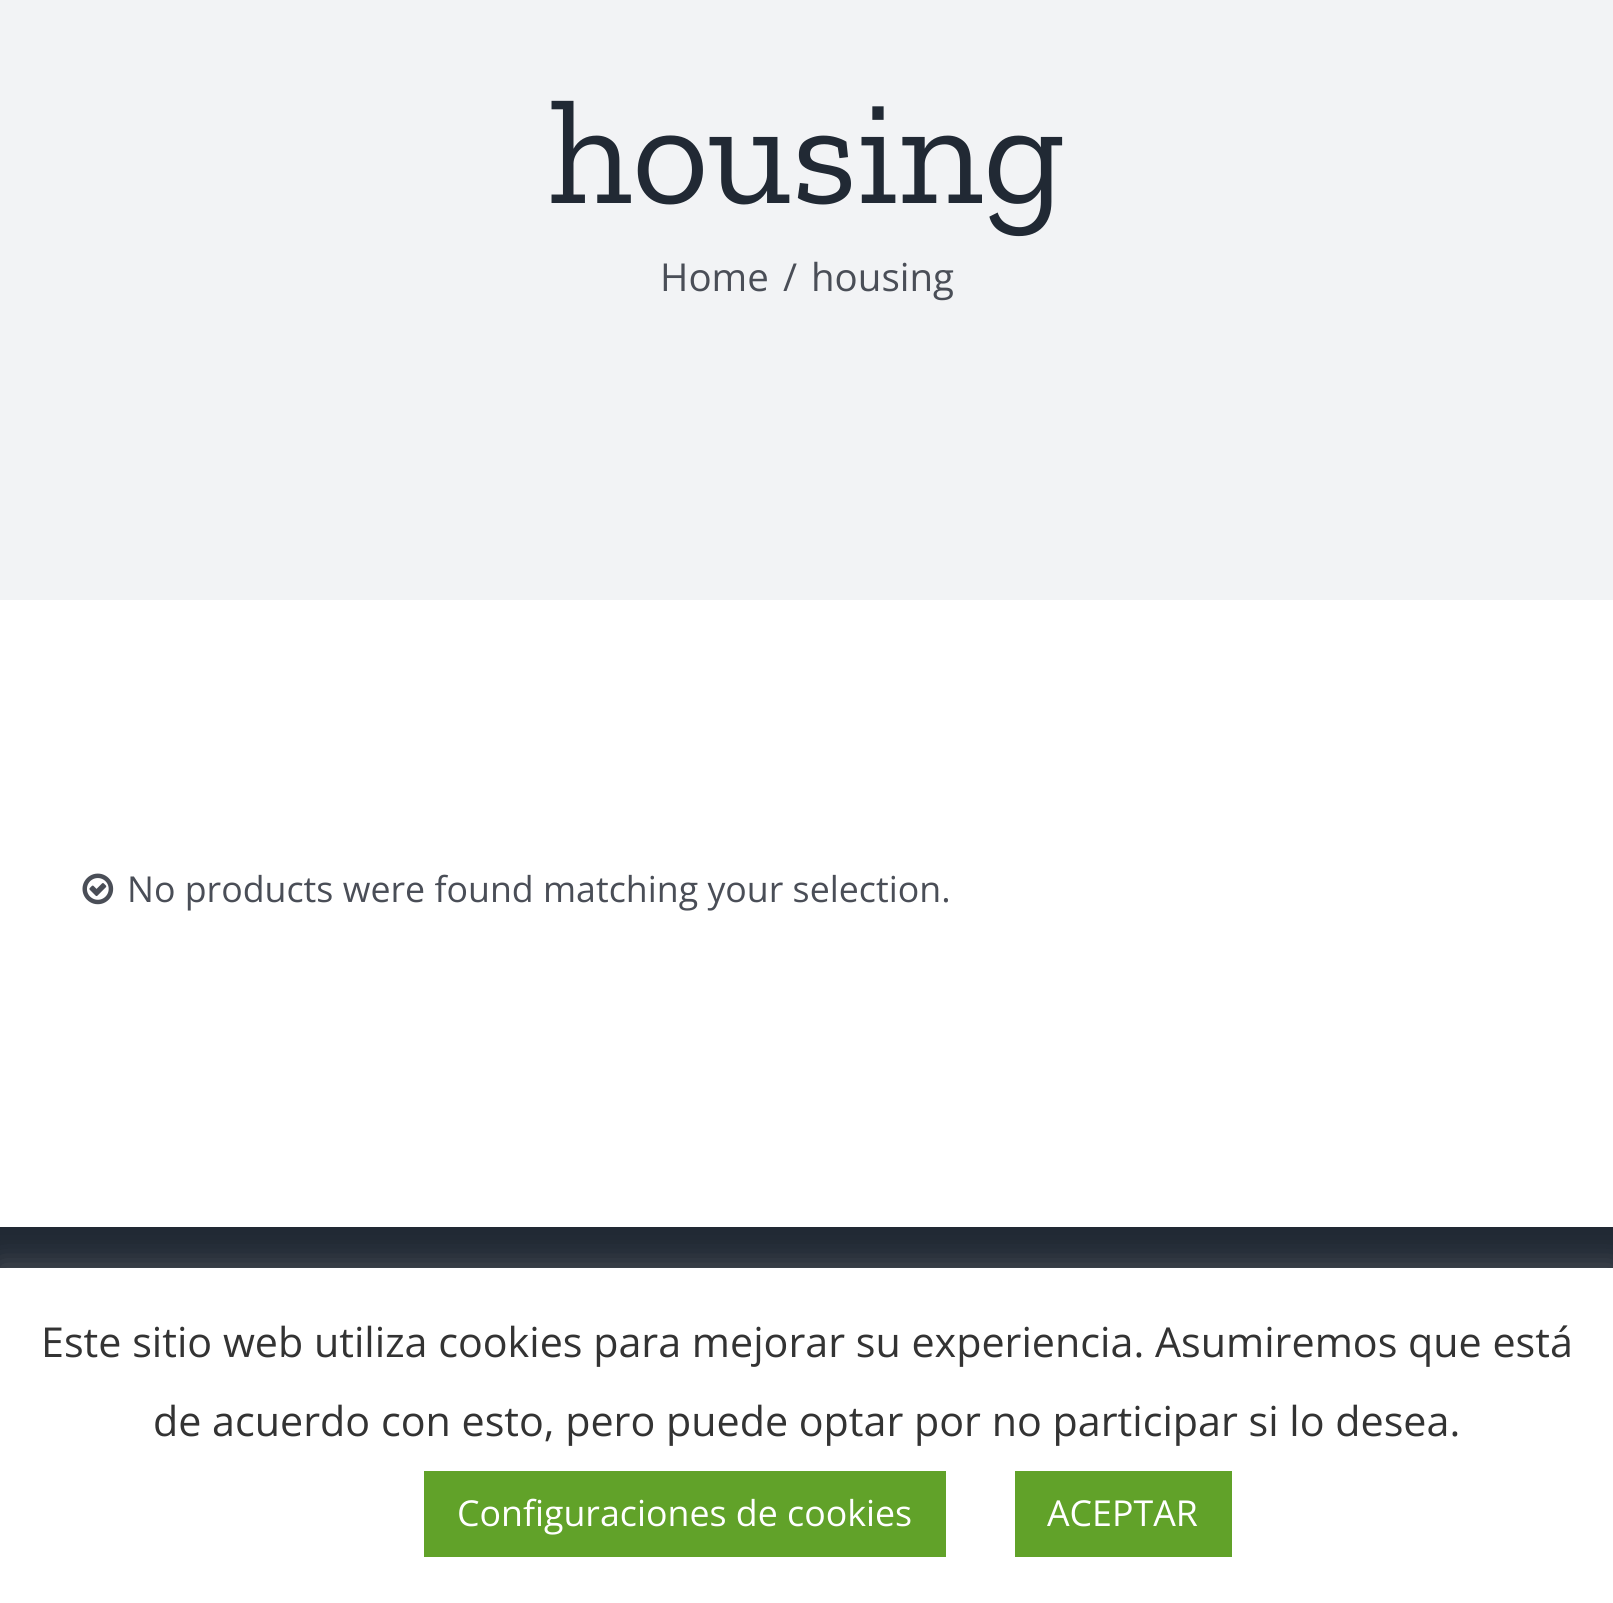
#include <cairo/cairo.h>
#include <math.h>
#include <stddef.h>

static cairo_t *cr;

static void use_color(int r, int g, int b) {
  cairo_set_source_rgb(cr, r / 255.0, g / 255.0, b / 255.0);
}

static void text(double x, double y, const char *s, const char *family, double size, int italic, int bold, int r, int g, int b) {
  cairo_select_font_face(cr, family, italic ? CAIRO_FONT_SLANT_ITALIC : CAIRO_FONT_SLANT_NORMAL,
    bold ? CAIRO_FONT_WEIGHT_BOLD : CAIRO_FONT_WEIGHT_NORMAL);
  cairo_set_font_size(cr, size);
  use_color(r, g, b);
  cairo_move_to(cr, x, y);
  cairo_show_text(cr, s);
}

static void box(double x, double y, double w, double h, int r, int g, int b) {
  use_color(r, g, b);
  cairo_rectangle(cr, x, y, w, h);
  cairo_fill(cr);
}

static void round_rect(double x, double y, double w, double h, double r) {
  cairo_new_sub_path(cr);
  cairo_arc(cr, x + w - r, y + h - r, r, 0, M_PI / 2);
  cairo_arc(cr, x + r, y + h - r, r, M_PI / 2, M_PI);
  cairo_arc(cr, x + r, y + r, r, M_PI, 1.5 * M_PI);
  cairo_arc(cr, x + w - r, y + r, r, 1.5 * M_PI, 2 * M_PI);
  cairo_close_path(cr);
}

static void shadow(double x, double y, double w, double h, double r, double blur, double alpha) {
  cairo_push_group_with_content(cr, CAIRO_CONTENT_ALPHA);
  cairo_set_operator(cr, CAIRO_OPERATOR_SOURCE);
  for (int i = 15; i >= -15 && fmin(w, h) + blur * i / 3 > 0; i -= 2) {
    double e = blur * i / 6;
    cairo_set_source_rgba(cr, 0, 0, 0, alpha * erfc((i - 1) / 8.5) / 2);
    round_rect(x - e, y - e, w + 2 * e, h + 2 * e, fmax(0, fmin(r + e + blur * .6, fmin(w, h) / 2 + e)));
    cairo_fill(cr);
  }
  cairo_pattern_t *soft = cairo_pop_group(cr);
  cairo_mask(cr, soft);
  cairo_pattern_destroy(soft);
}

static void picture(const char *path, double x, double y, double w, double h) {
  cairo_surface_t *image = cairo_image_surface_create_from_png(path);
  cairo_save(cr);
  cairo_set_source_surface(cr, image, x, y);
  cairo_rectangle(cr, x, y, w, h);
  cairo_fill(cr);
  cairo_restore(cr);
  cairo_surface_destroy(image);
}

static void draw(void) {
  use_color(242, 243, 245);
  cairo_paint(cr);
  box(0, 600, 1613, 627, 255, 255, 255);
  picture("img_01.png", 82, 873, 32, 32);
  box(0, 1227, 1613, 41, 33, 41, 52);
  use_color(172, 171, 171);
  shadow(0, 1265, 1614, 336, 0, 14, 0.3);
  box(0, 1268, 1613, 335, 255, 255, 255);
  box(424, 1471, 522, 86, 97, 162, 41);
  box(1015, 1471, 217, 86, 97, 162, 41);
  text(549, 203, "housing", "Zilla Slab", 148.5, 0, 0, 33, 41, 52);
  text(660, 291, "Home", "Open Sans", 38.5, 0, 0, 74, 78, 87);
  text(783, 291, "/", "Open Sans", 38.5, 0, 0, 74, 78, 87);
  text(811, 291, "housing", "Open Sans", 38.5, 0, 0, 74, 78, 87);
  text(127, 902, "No products were found matching your selection.", "Open Sans", 35.75, 0, 0, 74, 78, 87);
  text(41, 1357, "Este sitio web utiliza cookies para mejorar su experiencia. Asumiremos que está", "Open Sans", 41.25, 0, 0, 51, 51, 51);
  text(153, 1436, "de acuerdo con esto, pero puede optar por no participar si lo desea.", "Open Sans", 41.25, 0, 0, 51, 51, 51);
  text(457, 1526, "Configuraciones de cookies", "Open Sans", 35.75, 0, 0, 255, 255, 255);
  text(1047, 1526, "ACEPTAR", "Open Sans", 35.75, 0, 0, 255, 255, 255);
}

int main(void) {
  cairo_surface_t *surface = cairo_image_surface_create(CAIRO_FORMAT_RGB24, 1613, 1603);
  cr = cairo_create(surface);
  cairo_font_options_t *options = cairo_font_options_create();
  cairo_font_options_set_hint_metrics(options, CAIRO_HINT_METRICS_OFF);
  cairo_font_options_set_hint_style(options, CAIRO_HINT_STYLE_NONE);
  cairo_set_font_options(cr, options);
  cairo_set_miter_limit(cr, 4);
  draw();
  cairo_surface_write_to_png(surface, "out.png");
  cairo_font_options_destroy(options);
  cairo_destroy(cr);
  cairo_surface_destroy(surface);
  return 0;
}
